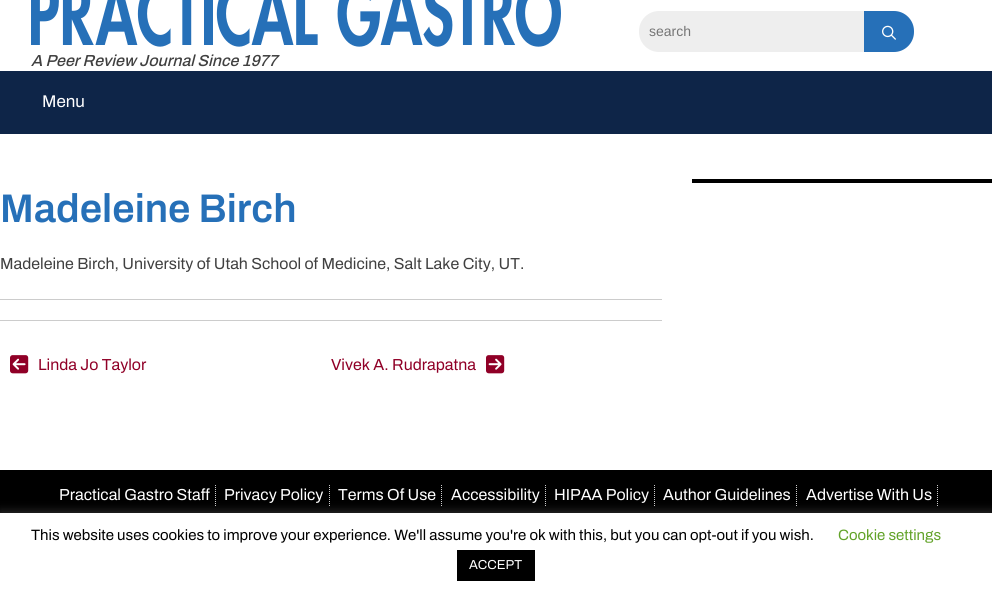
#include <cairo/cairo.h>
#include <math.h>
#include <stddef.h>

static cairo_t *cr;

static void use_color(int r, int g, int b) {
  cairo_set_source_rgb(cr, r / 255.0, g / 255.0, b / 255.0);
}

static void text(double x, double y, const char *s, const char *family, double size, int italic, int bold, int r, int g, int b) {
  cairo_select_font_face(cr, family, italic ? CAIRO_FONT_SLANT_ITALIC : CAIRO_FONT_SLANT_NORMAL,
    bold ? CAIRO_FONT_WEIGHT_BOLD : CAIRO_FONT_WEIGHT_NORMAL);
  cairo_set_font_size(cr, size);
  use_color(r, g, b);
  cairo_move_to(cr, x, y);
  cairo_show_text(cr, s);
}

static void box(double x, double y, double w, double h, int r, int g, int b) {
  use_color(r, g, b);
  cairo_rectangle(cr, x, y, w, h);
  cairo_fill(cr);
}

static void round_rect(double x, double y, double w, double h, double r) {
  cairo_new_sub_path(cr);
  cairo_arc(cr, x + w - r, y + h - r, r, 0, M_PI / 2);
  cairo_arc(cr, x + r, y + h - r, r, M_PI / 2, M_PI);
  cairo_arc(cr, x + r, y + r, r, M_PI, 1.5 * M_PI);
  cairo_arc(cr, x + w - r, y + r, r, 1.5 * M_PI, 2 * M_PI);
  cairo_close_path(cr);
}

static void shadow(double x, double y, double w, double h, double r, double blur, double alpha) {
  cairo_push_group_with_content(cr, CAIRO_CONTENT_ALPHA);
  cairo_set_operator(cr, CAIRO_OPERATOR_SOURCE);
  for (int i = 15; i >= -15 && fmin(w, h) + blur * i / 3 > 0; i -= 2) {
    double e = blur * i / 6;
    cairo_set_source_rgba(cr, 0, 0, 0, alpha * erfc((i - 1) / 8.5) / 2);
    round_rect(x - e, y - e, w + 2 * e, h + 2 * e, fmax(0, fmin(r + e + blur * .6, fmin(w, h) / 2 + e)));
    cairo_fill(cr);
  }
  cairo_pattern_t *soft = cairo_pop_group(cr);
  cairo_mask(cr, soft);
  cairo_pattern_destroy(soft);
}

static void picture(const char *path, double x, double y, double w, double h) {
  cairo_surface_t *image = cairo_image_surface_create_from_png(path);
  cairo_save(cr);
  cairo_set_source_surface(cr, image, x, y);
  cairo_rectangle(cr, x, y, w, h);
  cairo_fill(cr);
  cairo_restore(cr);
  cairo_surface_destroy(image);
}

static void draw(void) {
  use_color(255, 255, 255);
  cairo_paint(cr);
  use_color(238, 238, 238);
  cairo_new_path(cr);
  cairo_move_to(cr, 659, 11);
  cairo_line_to(cr, 864, 11);
  cairo_line_to(cr, 864, 52);
  cairo_line_to(cr, 659, 52);
  cairo_curve_to(cr, 648, 52, 639, 43, 639, 32);
  cairo_line_to(cr, 639, 31);
  cairo_curve_to(cr, 639, 20, 648, 11, 659, 11);
  cairo_close_path(cr);
  cairo_fill(cr);
  use_color(38, 112, 184);
  cairo_new_path(cr);
  cairo_move_to(cr, 864, 11);
  cairo_line_to(cr, 894, 11);
  cairo_curve_to(cr, 905, 11, 914, 20, 914, 31);
  cairo_line_to(cr, 914, 32);
  cairo_curve_to(cr, 914, 43, 905, 52, 894, 52);
  cairo_line_to(cr, 864, 52);
  cairo_close_path(cr);
  cairo_fill(cr);
  picture("img_01.png", 882, 25, 14, 15);
  picture("img_02.png", 31, 0, 530, 47);
  box(0, 71, 992, 63, 14, 37, 72);
  box(692, 179, 300, 4, 0, 0, 0);
  box(0, 299, 662, 1, 204, 204, 204);
  box(0, 320, 662, 1, 204, 204, 204);
  picture("img_03.png", 10, 355, 19, 19);
  picture("img_04.png", 486, 355, 19, 19);
  box(0, 470, 992, 43, 0, 0, 0);
  cairo_new_path(cr);
  cairo_move_to(cr, 215.5, 485);
  cairo_line_to(cr, 215.5, 506);
  use_color(204, 204, 204);
  cairo_set_line_width(cr, 1);
  cairo_set_dash(cr, (double[]){1, 1}, 2, 0);
  cairo_stroke(cr);
  cairo_new_path(cr);
  cairo_move_to(cr, 329.5, 485);
  cairo_line_to(cr, 329.5, 506);
  cairo_stroke(cr);
  cairo_new_path(cr);
  cairo_move_to(cr, 441.5, 485);
  cairo_line_to(cr, 441.5, 506);
  cairo_stroke(cr);
  cairo_new_path(cr);
  cairo_move_to(cr, 545.5, 485);
  cairo_line_to(cr, 545.5, 506);
  cairo_stroke(cr);
  cairo_new_path(cr);
  cairo_move_to(cr, 654.5, 485);
  cairo_line_to(cr, 654.5, 506);
  cairo_stroke(cr);
  cairo_new_path(cr);
  cairo_move_to(cr, 796.5, 485);
  cairo_line_to(cr, 796.5, 506);
  cairo_stroke(cr);
  cairo_new_path(cr);
  cairo_move_to(cr, 937.5, 485);
  cairo_line_to(cr, 937.5, 506);
  cairo_stroke(cr);
  use_color(172, 171, 171);
  shadow(0, 512, 992, 85, 0, 5, 0.3);
  box(0, 513, 992, 85, 255, 255, 255);
  box(457, 550, 78, 31, 0, 0, 0);
  text(649, 36, "search", "Liberation Sans", 14, 0, 0, 117, 117, 117);
  text(31, 66, "A Peer Review Journal Since 1977", "Archivo SemiBold", 16, 1, 0, 64, 64, 64);
  text(42, 107, "Menu", "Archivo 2 SemiBold", 17, 0, 0, 255, 255, 255);
  text(0, 222, "Madeleine Birch", "Archivo SemiBold", 40, 0, 0, 38, 112, 184);
  text(0, 269, "Madeleine Birch, University of Utah School of Medicine, Salt Lake City, UT.", "Archivo 2 SemiBold", 16, 0, 0, 64, 64, 64);
  text(38, 370, "Linda Jo Taylor", "Archivo 2 SemiBold", 16, 0, 0, 144, 0, 39);
  text(331, 370, "Vivek A. Rudrapatna", "Archivo 2 SemiBold", 16, 0, 0, 144, 0, 39);
  text(59, 500, "Practical Gastro Staff", "Archivo 2 SemiBold", 16, 0, 0, 255, 255, 255);
  text(224, 500, "Privacy Policy", "Archivo 2 SemiBold", 16, 0, 0, 255, 255, 255);
  text(338, 500, "Terms Of Use", "Archivo 2 SemiBold", 16, 0, 0, 255, 255, 255);
  text(451, 500, "Accessibility", "Archivo 2 SemiBold", 16, 0, 0, 255, 255, 255);
  text(554, 500, "HIPAA Policy", "Archivo 2 SemiBold", 16, 0, 0, 255, 255, 255);
  text(663, 500, "Author Guidelines", "Archivo 2 SemiBold", 16, 0, 0, 255, 255, 255);
  text(806, 500, "Advertise With Us", "Archivo 2 SemiBold", 16, 0, 0, 255, 255, 255);
  text(31, 540, "This website uses cookies to improve your experience. We'll assume you're ok with this, but you can opt-out if you wish.", "Archivo 2 SemiBold", 15, 0, 0, 0, 0, 0);
  text(838, 540, "Cookie settings", "Archivo 2 SemiBold", 15, 0, 0, 98, 163, 41);
  text(469, 569, "ACCEPT", "Archivo 2 SemiBold", 13, 0, 0, 255, 255, 255);
}

int main(void) {
  cairo_surface_t *surface = cairo_image_surface_create(CAIRO_FORMAT_RGB24, 992, 598);
  cr = cairo_create(surface);
  cairo_font_options_t *options = cairo_font_options_create();
  cairo_font_options_set_hint_metrics(options, CAIRO_HINT_METRICS_OFF);
  cairo_font_options_set_hint_style(options, CAIRO_HINT_STYLE_NONE);
  cairo_set_font_options(cr, options);
  cairo_set_miter_limit(cr, 4);
  draw();
  cairo_surface_write_to_png(surface, "out.png");
  cairo_font_options_destroy(options);
  cairo_destroy(cr);
  cairo_surface_destroy(surface);
  return 0;
}
